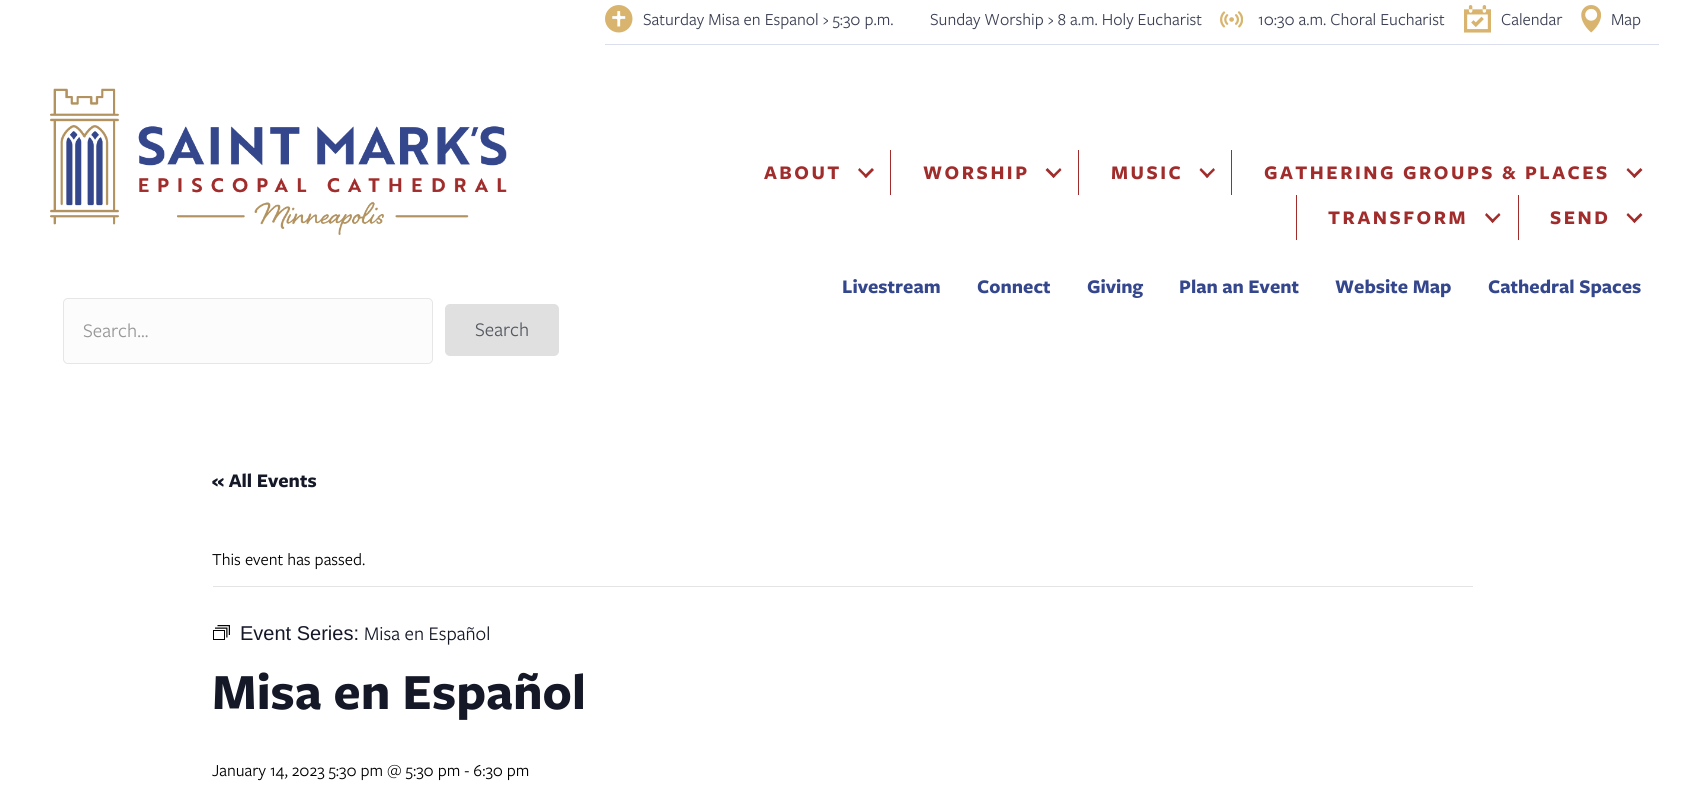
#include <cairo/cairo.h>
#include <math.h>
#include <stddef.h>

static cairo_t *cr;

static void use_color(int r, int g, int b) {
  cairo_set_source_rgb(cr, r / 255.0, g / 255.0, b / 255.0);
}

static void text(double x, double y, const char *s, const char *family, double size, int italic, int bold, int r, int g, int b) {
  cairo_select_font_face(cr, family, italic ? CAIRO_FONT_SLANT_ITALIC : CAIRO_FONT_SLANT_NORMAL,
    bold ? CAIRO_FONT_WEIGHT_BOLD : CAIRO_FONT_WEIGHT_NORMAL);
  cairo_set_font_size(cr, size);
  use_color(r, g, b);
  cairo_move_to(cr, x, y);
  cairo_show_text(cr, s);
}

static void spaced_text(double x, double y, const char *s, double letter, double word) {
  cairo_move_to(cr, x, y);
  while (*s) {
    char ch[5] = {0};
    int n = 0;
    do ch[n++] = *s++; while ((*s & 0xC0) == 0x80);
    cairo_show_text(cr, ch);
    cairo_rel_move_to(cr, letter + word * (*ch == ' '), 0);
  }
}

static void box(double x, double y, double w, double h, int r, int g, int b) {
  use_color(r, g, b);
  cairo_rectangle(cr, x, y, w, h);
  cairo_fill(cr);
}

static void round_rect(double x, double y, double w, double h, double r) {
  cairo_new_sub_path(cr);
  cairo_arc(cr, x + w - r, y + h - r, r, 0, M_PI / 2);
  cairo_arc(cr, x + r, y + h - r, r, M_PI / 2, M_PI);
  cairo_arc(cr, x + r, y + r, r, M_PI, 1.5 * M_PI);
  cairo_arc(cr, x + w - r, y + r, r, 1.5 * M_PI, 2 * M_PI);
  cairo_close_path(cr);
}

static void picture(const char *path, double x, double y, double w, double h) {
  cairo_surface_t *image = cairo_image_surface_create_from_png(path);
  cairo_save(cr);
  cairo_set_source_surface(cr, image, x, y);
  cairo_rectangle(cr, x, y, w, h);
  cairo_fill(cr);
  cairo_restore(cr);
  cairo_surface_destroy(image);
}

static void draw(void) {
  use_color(255, 255, 255);
  cairo_paint(cr);
  box(605, 44, 1054, 1, 218, 222, 238);
  picture("img_01.png", 605, 5, 28, 28);
  picture("img_02.png", 1220, 11, 23, 17);
  picture("img_03.png", 1464, 5, 27, 28);
  picture("img_04.png", 1581, 5, 20, 28);
  use_color(160, 44, 43);
  cairo_new_path(cr);
  cairo_move_to(cr, 872, 168);
  cairo_line_to(cr, 874, 170);
  cairo_line_to(cr, 866, 178);
  cairo_line_to(cr, 864, 176);
  cairo_close_path(cr);
  cairo_fill(cr);
  cairo_new_path(cr);
  cairo_move_to(cr, 859.5, 168);
  cairo_line_to(cr, 867.5, 176);
  cairo_line_to(cr, 866, 178);
  cairo_line_to(cr, 858, 170);
  cairo_close_path(cr);
  cairo_fill(cr);
  box(890, 150, 1, 45, 160, 44, 43);
  cairo_new_path(cr);
  cairo_move_to(cr, 1060, 168);
  cairo_line_to(cr, 1061.5, 170);
  cairo_line_to(cr, 1053.5, 178);
  cairo_line_to(cr, 1052, 176);
  cairo_close_path(cr);
  cairo_fill(cr);
  cairo_new_path(cr);
  cairo_move_to(cr, 1047.5, 168);
  cairo_line_to(cr, 1055.5, 176);
  cairo_line_to(cr, 1053.5, 178);
  cairo_line_to(cr, 1045.5, 170);
  cairo_close_path(cr);
  cairo_fill(cr);
  box(1078, 150, 1, 45, 160, 44, 43);
  cairo_new_path(cr);
  cairo_move_to(cr, 1213.5, 168);
  cairo_line_to(cr, 1215, 170);
  cairo_line_to(cr, 1207, 178);
  cairo_line_to(cr, 1205.5, 176);
  cairo_close_path(cr);
  cairo_fill(cr);
  cairo_new_path(cr);
  cairo_move_to(cr, 1201, 168);
  cairo_line_to(cr, 1209, 176);
  cairo_line_to(cr, 1207, 178);
  cairo_line_to(cr, 1199.5, 170);
  cairo_close_path(cr);
  cairo_fill(cr);
  box(1231, 150, 1, 45, 160, 44, 43);
  cairo_new_path(cr);
  cairo_move_to(cr, 1640.5, 168);
  cairo_line_to(cr, 1642.5, 170);
  cairo_line_to(cr, 1634.5, 178);
  cairo_line_to(cr, 1632.5, 176);
  cairo_close_path(cr);
  cairo_fill(cr);
  cairo_new_path(cr);
  cairo_move_to(cr, 1628, 168);
  cairo_line_to(cr, 1636, 176);
  cairo_line_to(cr, 1634.5, 178);
  cairo_line_to(cr, 1626.5, 170);
  cairo_close_path(cr);
  cairo_fill(cr);
  box(1296, 195, 1, 45, 160, 44, 43);
  cairo_new_path(cr);
  cairo_move_to(cr, 1499, 213);
  cairo_line_to(cr, 1500.5, 215);
  cairo_line_to(cr, 1492.5, 223);
  cairo_line_to(cr, 1491, 221);
  cairo_close_path(cr);
  cairo_fill(cr);
  cairo_new_path(cr);
  cairo_move_to(cr, 1486.5, 213);
  cairo_line_to(cr, 1494.5, 221);
  cairo_line_to(cr, 1492.5, 223);
  cairo_line_to(cr, 1485, 215);
  cairo_close_path(cr);
  cairo_fill(cr);
  box(1518, 195, 1, 45, 160, 44, 43);
  cairo_new_path(cr);
  cairo_move_to(cr, 1640.5, 213);
  cairo_line_to(cr, 1642.5, 215);
  cairo_line_to(cr, 1634.5, 223);
  cairo_line_to(cr, 1632.5, 221);
  cairo_close_path(cr);
  cairo_fill(cr);
  cairo_new_path(cr);
  cairo_move_to(cr, 1628, 213);
  cairo_line_to(cr, 1636, 221);
  cairo_line_to(cr, 1634.5, 223);
  cairo_line_to(cr, 1626.5, 215);
  cairo_close_path(cr);
  cairo_fill(cr);
  picture("img_05.png", 50, 88, 457, 147);
  use_color(252, 252, 252);
  round_rect(63.5, 298.5, 369, 65, 4.5);
  cairo_fill_preserve(cr);
  use_color(230, 230, 230);
  cairo_set_line_width(cr, 1);
  cairo_stroke(cr);
  use_color(224, 224, 224);
  round_rect(445, 304, 114, 52, 5);
  cairo_fill(cr);
  box(213, 586, 1260, 1, 228, 228, 228);
  picture("img_06.png", 213, 625, 17, 15);
  text(643, 25, "Saturday Misa en Espanol › 5:30 p.m.", "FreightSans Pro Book", 17.5, 0, 0, 59, 64, 83);
  text(930, 25, "Sunday Worship › 8 a.m. Holy Eucharist", "FreightSans Pro Book", 17.5, 0, 0, 59, 64, 83);
  text(1258, 25, "10:30 a.m. Choral Eucharist", "FreightSans Pro Book", 17.5, 0, 0, 59, 64, 83);
  text(1501, 25, "Calendar", "FreightSans Pro Book", 17.5, 0, 0, 59, 64, 83);
  text(1611, 25, "Map", "FreightSans Pro Book", 17.5, 0, 0, 59, 64, 83);
  cairo_select_font_face(cr, "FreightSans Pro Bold", CAIRO_FONT_SLANT_NORMAL, CAIRO_FONT_WEIGHT_BOLD);
  cairo_set_font_size(cr, 20);
  use_color(160, 44, 43);
  spaced_text(764, 179, "ABOUT", 2.5, 0);
  spaced_text(923, 179, "WORSHIP", 2.5, 0);
  spaced_text(1111, 179, "MUSIC", 2.5, 0);
  spaced_text(1264, 179, "GATHERING GROUPS & PLACES", 2.5, 0);
  spaced_text(1328, 224, "TRANSFORM", 2.5, 0);
  spaced_text(1550, 224, "SEND", 2.5, 0);
  text(842, 293, "Livestream", "FreightSans Pro Bold", 20, 0, 1, 52, 70, 140);
  text(977, 293, "Connect", "FreightSans Pro Bold", 20, 0, 1, 52, 70, 140);
  text(1087, 293, "Giving", "FreightSans Pro Bold", 20, 0, 1, 52, 70, 140);
  text(1179, 293, "Plan an Event", "FreightSans Pro Bold", 20, 0, 1, 52, 70, 140);
  text(1335, 293, "Website Map", "FreightSans Pro Bold", 20, 0, 1, 52, 70, 140);
  text(1488, 293, "Cathedral Spaces", "FreightSans Pro Bold", 20, 0, 1, 52, 70, 140);
  text(83, 337, "Search...", "FreightSans Pro Book", 20, 0, 0, 151, 151, 151);
  text(475, 336, "Search", "FreightSans Pro Book", 20, 0, 0, 84, 89, 95);
  text(212, 487, "« All Events", "FreightSans Pro Bold", 20, 0, 1, 20, 24, 39);
  text(212, 565, "This event has passed.", "FreightSans Pro Book", 17.5, 0, 0, 0, 0, 0);
  text(240, 640, "Event Series:", "Liberation Sans", 20, 0, 0, 20, 24, 39);
  text(364, 640, "Misa en Español", "FreightSans Pro Book", 20, 0, 0, 20, 24, 39);
  text(212, 709, "Misa en Español", "FreightSans Pro Bold", 52.5, 0, 1, 20, 24, 39);
  text(212, 776, "January 14, 2023 5:30 pm @ 5:30 pm - 6:30 pm", "FreightSans Pro Book", 17.5, 0, 0, 0, 0, 0);
}

int main(void) {
  cairo_surface_t *surface = cairo_image_surface_create(CAIRO_FORMAT_RGB24, 1683, 787);
  cr = cairo_create(surface);
  cairo_font_options_t *options = cairo_font_options_create();
  cairo_font_options_set_hint_metrics(options, CAIRO_HINT_METRICS_OFF);
  cairo_font_options_set_hint_style(options, CAIRO_HINT_STYLE_NONE);
  cairo_set_font_options(cr, options);
  cairo_set_miter_limit(cr, 4);
  draw();
  cairo_surface_write_to_png(surface, "out.png");
  cairo_font_options_destroy(options);
  cairo_destroy(cr);
  cairo_surface_destroy(surface);
  return 0;
}
